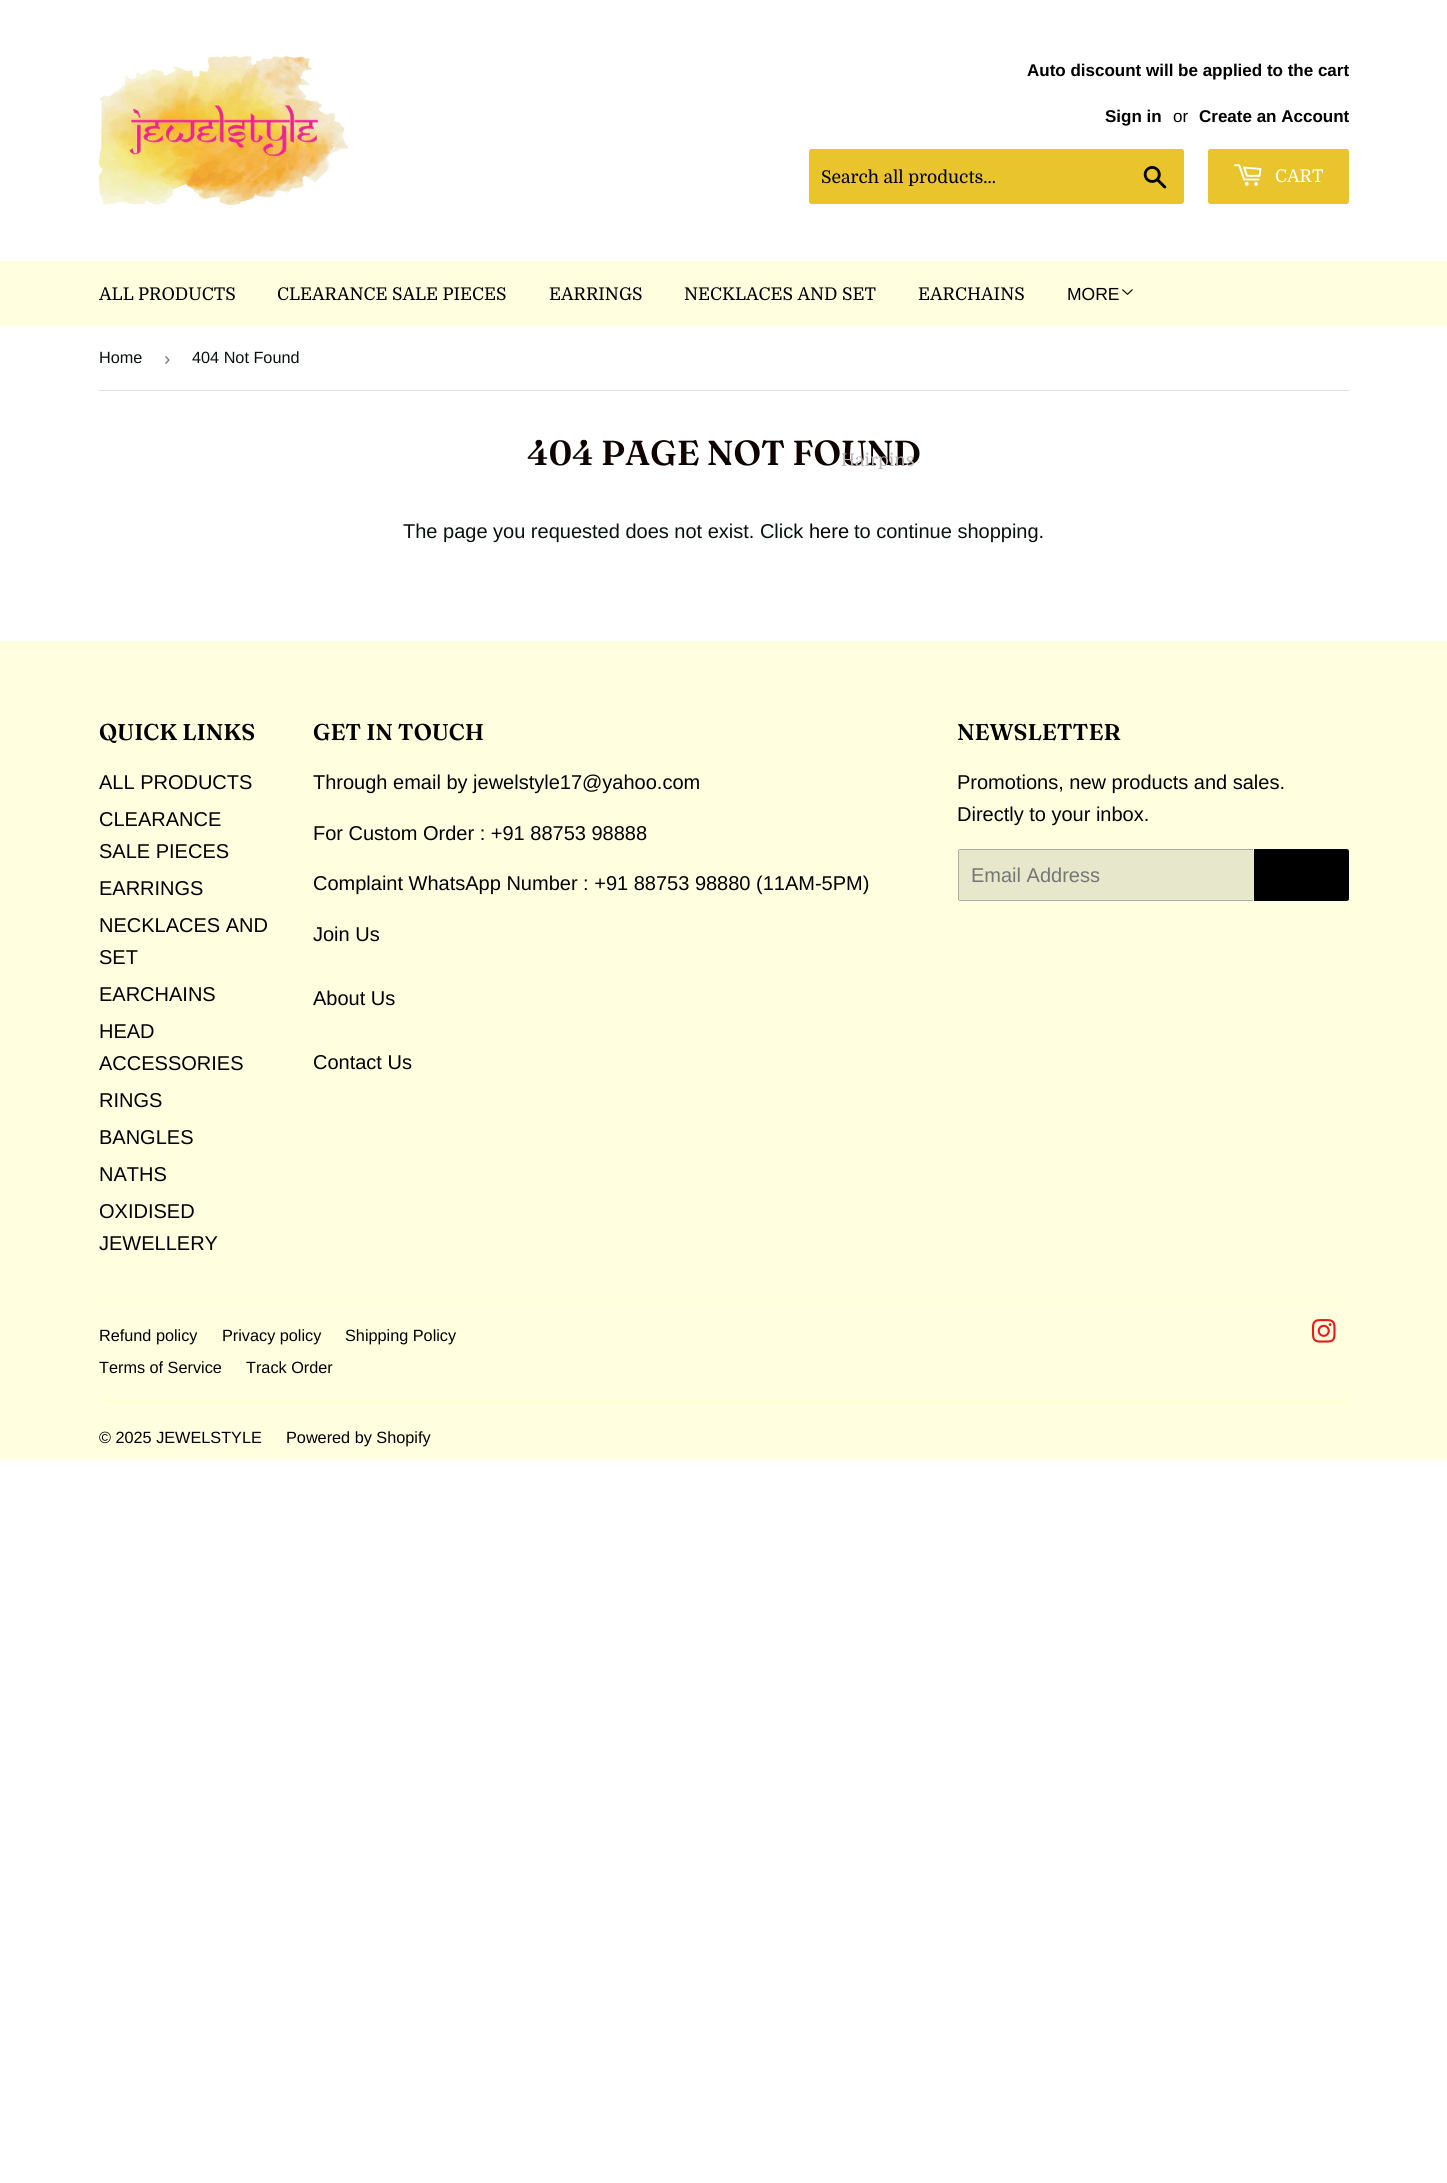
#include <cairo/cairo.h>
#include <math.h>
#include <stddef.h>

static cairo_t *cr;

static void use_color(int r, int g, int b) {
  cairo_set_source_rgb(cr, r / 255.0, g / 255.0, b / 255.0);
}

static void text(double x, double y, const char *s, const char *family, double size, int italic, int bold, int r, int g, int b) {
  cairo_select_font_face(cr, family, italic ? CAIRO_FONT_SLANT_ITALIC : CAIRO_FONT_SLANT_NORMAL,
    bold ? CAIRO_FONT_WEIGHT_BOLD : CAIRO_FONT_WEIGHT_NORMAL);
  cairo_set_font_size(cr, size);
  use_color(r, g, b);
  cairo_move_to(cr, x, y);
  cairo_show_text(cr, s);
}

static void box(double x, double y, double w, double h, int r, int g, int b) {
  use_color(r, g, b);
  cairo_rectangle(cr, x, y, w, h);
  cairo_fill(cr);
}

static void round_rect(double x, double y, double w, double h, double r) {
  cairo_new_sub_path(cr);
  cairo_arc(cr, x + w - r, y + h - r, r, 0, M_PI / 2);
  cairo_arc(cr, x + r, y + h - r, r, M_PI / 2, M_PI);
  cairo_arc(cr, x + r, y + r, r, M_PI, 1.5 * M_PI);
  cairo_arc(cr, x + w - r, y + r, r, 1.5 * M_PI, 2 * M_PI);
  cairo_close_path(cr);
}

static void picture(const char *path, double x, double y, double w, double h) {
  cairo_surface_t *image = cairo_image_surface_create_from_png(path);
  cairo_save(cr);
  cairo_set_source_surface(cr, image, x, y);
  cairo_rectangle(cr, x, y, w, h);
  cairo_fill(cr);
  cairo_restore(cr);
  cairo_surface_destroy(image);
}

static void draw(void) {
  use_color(255, 255, 255);
  cairo_paint(cr);
  picture("img_01.png", 98, 56, 251, 149);
  use_color(233, 196, 44);
  round_rect(809, 149, 375, 55, 2.5);
  cairo_fill(cr);
  picture("img_02.png", 1143, 166, 24, 23);
  round_rect(1208, 149, 141, 55, 2.5);
  cairo_fill(cr);
  picture("img_03.png", 1234, 164, 28, 22);
  box(0, 261, 1447, 65, 255, 255, 224);
  picture("img_04.png", 1122, 289, 11, 6);
  box(99, 390, 1250, 1, 222, 222, 222);
  box(0, 641, 1447, 819, 255, 255, 224);
  use_color(230, 231, 203);
  round_rect(958, 849, 296, 52, 2.5);
  cairo_fill(cr);
  box(959, 849, 294, 1, 171, 171, 171);
  box(959, 900, 294, 1, 171, 171, 171);
  box(958, 850, 1, 50, 171, 171, 171);
  use_color(0, 0, 0);
  cairo_new_path(cr);
  cairo_move_to(cr, 1254, 849);
  cairo_line_to(cr, 1346.5, 849);
  cairo_curve_to(cr, 1348, 849, 1349, 850, 1349, 851.5);
  cairo_line_to(cr, 1349, 898.5);
  cairo_curve_to(cr, 1349, 900, 1348, 901, 1346.5, 901);
  cairo_line_to(cr, 1254, 901);
  cairo_close_path(cr);
  cairo_fill(cr);
  box(99, 1298, 1250, 1, 255, 255, 198);
  picture("img_05.png", 1311, 1319, 25, 24);
  box(99, 1401, 1250, 1, 255, 255, 198);
  text(1027, 76, "Auto discount will be applied to the cart", "Arimo", 17, 0, 1, 0, 0, 0);
  text(1105, 122, "Sign in", "Arimo", 17, 0, 1, 0, 0, 0);
  text(1173, 122, "or", "Arimo", 17, 0, 0, 0, 0, 0);
  text(1199, 122, "Create an Account", "Arimo", 17, 0, 1, 0, 0, 0);
  cairo_save(cr);
  cairo_rectangle(cr, 821, 166, 302, 20);
  cairo_clip(cr);
  text(821, 183, "Search all products...", "Domine", 17.5, 0, 0, 0, 0, 0);
  cairo_restore(cr);
  text(1275, 182, "CART", "Domine", 17.5, 0, 0, 255, 255, 255);
  text(99, 300, "ALL PRODUCTS", "Domine", 17.5, 0, 0, 0, 0, 0);
  text(277, 300, "CLEARANCE SALE PIECES", "Domine", 17.5, 0, 0, 0, 0, 0);
  text(549, 300, "EARRINGS", "Domine", 17.5, 0, 0, 0, 0, 0);
  text(684, 300, "NECKLACES AND SET", "Domine", 17.5, 0, 0, 0, 0, 0);
  text(1067, 300, "MORE", "Arimo", 17.5, 0, 0, 0, 0, 0);
  text(918, 300, "EARCHAINS", "Domine", 17.5, 0, 0, 0, 0, 0);
  text(99, 363, "Home", "Arimo", 16.25, 0, 0, 8, 17, 15);
  text(164, 365, "›", "Liberation Sans", 19, 0, 0, 118, 118, 118);
  text(192, 363, "404 Not Found", "Arimo", 16.25, 0, 0, 8, 17, 15);
  text(527, 465, "404 PAGE NOT FOUND", "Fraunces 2 SemiBold", 34.7, 0, 0, 15, 2, 2);
  text(841, 466, "Hairpins", "Domine", 17.5, 0, 0, 185, 182, 182);
  text(403, 538, "The page you requested does not exist. Click", "Arimo", 20, 0, 0, 8, 17, 15);
  text(809, 538, "here", "Arimo", 20, 0, 0, 0, 0, 0);
  text(854, 538, "to continue shopping.", "Arimo", 20, 0, 0, 8, 17, 15);
  text(99, 740, "QUICK LINKS", "Fraunces SemiBold", 22.75, 0, 0, 0, 0, 0);
  text(99, 789, "ALL PRODUCTS", "Arimo", 20, 0, 0, 0, 0, 0);
  text(99, 826, "CLEARANCE", "Arimo", 20, 0, 0, 0, 0, 0);
  text(99, 858, "SALE PIECES", "Arimo", 20, 0, 0, 0, 0, 0);
  text(99, 895, "EARRINGS", "Arimo", 20, 0, 0, 0, 0, 0);
  text(99, 932, "NECKLACES AND", "Arimo", 20, 0, 0, 0, 0, 0);
  text(99, 964, "SET", "Arimo", 20, 0, 0, 0, 0, 0);
  text(99, 1001, "EARCHAINS", "Arimo", 20, 0, 0, 0, 0, 0);
  text(99, 1038, "HEAD", "Arimo", 20, 0, 0, 0, 0, 0);
  text(99, 1070, "ACCESSORIES", "Arimo", 20, 0, 0, 0, 0, 0);
  text(99, 1107, "RINGS", "Arimo", 20, 0, 0, 0, 0, 0);
  text(99, 1144, "BANGLES", "Arimo", 20, 0, 0, 0, 0, 0);
  text(99, 1181, "NATHS", "Arimo", 20, 0, 0, 0, 0, 0);
  text(99, 1218, "OXIDISED", "Arimo", 20, 0, 0, 0, 0, 0);
  text(99, 1250, "JEWELLERY", "Arimo", 20, 0, 0, 0, 0, 0);
  text(313, 740, "GET IN TOUCH", "Fraunces SemiBold", 22.75, 0, 0, 0, 0, 0);
  text(313, 789, "Through email by jewelstyle17@yahoo.com", "Arimo", 20, 0, 0, 0, 0, 0);
  text(313, 840, "For Custom Order : +91 88753 98888", "Arimo", 20, 0, 0, 0, 0, 0);
  text(313, 890, "Complaint WhatsApp Number : +91 88753 98880 (11AM-5PM)", "Arimo", 20, 0, 0, 0, 0, 0);
  text(313, 941, "Join Us", "Arimo", 20, 0, 0, 0, 0, 0);
  text(313, 1005, "About Us", "Arimo", 20, 0, 0, 0, 0, 0);
  text(313, 1069, "Contact Us", "Arimo", 20, 0, 0, 0, 0, 0);
  text(957, 740, "NEWSLETTER", "Fraunces SemiBold", 22.75, 0, 0, 0, 0, 0);
  text(957, 789, "Promotions, new products and sales.", "Arimo", 20, 0, 0, 0, 0, 0);
  text(957, 821, "Directly to your inbox.", "Arimo", 20, 0, 0, 0, 0, 0);
  text(971, 882, "Email Address", "Arimo", 20, 0, 0, 118, 118, 118);
  text(99, 1341, "Refund policy", "Arimo", 16.25, 0, 0, 0, 0, 0);
  text(222, 1341, "Privacy policy", "Arimo", 16.25, 0, 0, 0, 0, 0);
  text(345, 1341, "Shipping Policy", "Arimo", 16.25, 0, 0, 0, 0, 0);
  text(99, 1373, "Terms of Service", "Arimo", 16.25, 0, 0, 0, 0, 0);
  text(246, 1373, "Track Order", "Arimo", 16.25, 0, 0, 0, 0, 0);
  text(99, 1443, "© 2025 JEWELSTYLE", "Arimo", 16.25, 0, 0, 0, 0, 0);
  text(286, 1443, "Powered by Shopify", "Arimo", 16.25, 0, 0, 0, 0, 0);
}

int main(void) {
  cairo_surface_t *surface = cairo_image_surface_create(CAIRO_FORMAT_RGB24, 1447, 2183);
  cr = cairo_create(surface);
  cairo_font_options_t *options = cairo_font_options_create();
  cairo_font_options_set_hint_metrics(options, CAIRO_HINT_METRICS_OFF);
  cairo_font_options_set_hint_style(options, CAIRO_HINT_STYLE_NONE);
  cairo_set_font_options(cr, options);
  cairo_set_miter_limit(cr, 4);
  draw();
  cairo_surface_write_to_png(surface, "out.png");
  cairo_font_options_destroy(options);
  cairo_destroy(cr);
  cairo_surface_destroy(surface);
  return 0;
}
